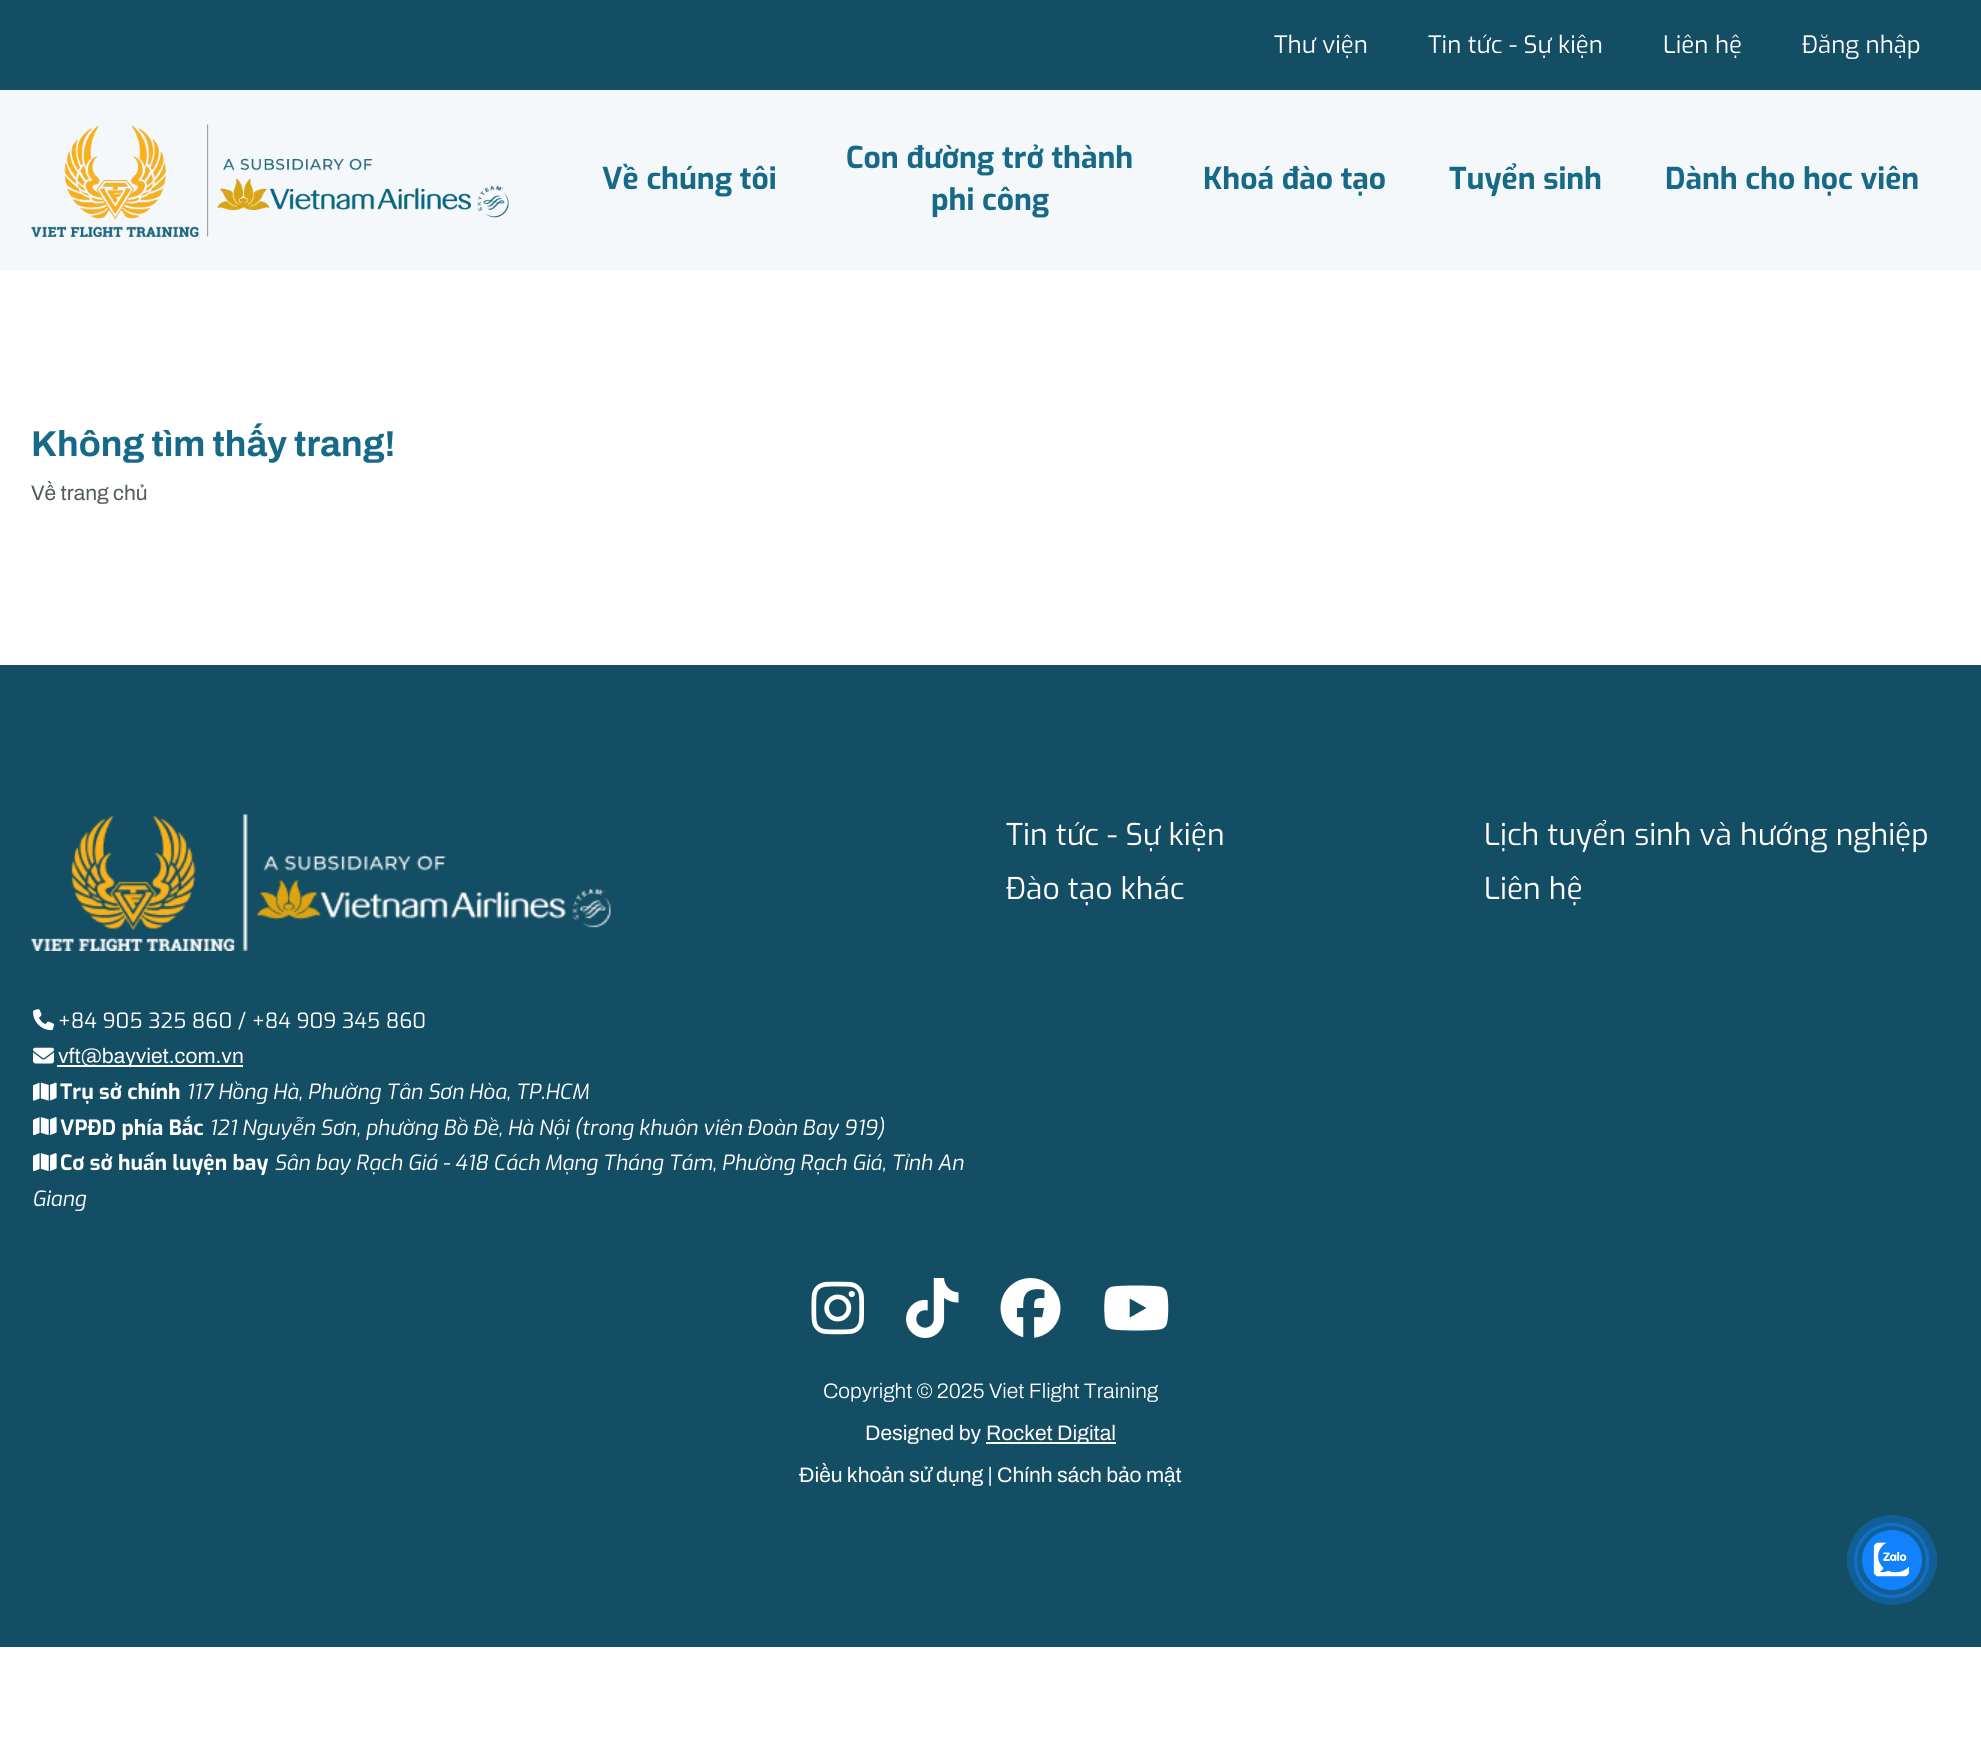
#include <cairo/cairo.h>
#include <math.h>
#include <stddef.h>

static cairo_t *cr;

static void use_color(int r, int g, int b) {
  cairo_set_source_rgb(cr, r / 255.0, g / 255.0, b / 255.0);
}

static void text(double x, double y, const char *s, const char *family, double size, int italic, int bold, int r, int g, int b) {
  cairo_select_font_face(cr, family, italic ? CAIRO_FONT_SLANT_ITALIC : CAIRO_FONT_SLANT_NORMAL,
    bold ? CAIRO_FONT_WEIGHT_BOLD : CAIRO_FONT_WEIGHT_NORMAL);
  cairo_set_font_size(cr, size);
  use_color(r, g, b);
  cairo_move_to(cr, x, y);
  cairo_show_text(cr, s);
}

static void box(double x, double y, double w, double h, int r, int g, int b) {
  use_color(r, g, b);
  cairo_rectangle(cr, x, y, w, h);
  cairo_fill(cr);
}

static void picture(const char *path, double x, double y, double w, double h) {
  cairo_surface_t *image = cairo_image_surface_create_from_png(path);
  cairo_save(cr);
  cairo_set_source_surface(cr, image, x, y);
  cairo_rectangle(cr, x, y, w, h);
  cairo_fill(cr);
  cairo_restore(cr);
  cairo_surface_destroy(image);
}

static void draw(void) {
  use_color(255, 255, 255);
  cairo_paint(cr);
  box(0, 0, 1981, 90, 19, 78, 100);
  box(0, 90, 1981, 180, 244, 248, 250);
  picture("img_01.png", 31, 124, 478, 113);
  box(0, 665, 1981, 982, 19, 78, 100);
  picture("img_02.png", 31, 814, 580, 137);
  picture("img_03.png", 33, 1009, 21, 22);
  picture("img_04.png", 33, 1047, 21, 17);
  box(57, 1065, 186, 2, 255, 255, 255);
  picture("img_05.png", 33, 1082, 24, 19);
  picture("img_06.png", 33, 1117, 24, 19);
  picture("img_06.png", 33, 1153, 24, 19);
  picture("img_07.png", 811, 1281, 53, 54);
  picture("img_08.png", 906, 1278, 53, 60);
  picture("img_09.png", 1000, 1278, 61, 60);
  picture("img_10.png", 1104, 1285, 65, 46);
  box(986, 1442, 130, 2, 255, 255, 255);
  cairo_arc(cr, 1891.5, 1560.5, 36, 0, 2 * M_PI);
  use_color(18, 104, 176);
  cairo_set_line_width(cr, 3);
  cairo_stroke(cr);
  cairo_set_source_rgba(cr, 0.067, 0.51, 0.988, 0.34);
  cairo_arc(cr, 1892, 1560, 45, 0, 2 * M_PI);
  cairo_fill(cr);
  use_color(17, 130, 252);
  cairo_arc(cr, 1892, 1560, 30, 0, 2 * M_PI);
  cairo_fill(cr);
  picture("img_11.png", 1873, 1542, 36, 35);
  text(1274, 53, "Thư viện", "Exo", 24, 0, 0, 255, 255, 255);
  text(1428, 53, "Tin tức - Sự kiện", "Exo", 24, 0, 0, 255, 255, 255);
  text(1663, 53, "Liên hệ", "Exo", 24, 0, 0, 255, 255, 255);
  text(1802, 53, "Đăng nhập", "Exo", 24, 0, 0, 255, 255, 255);
  text(602, 189, "Về chúng tôi", "Exo", 30, 0, 1, 22, 105, 135);
  text(846, 168, "Con đường trở thành", "Exo", 30, 0, 1, 22, 105, 135);
  text(931, 210, "phi công", "Exo", 30, 0, 1, 22, 105, 135);
  text(1203, 189, "Khoá đào tạo", "Exo", 30, 0, 1, 22, 105, 135);
  text(1449, 189, "Tuyển sinh", "Exo", 30, 0, 1, 22, 105, 135);
  text(1665, 189, "Dành cho học viên", "Exo", 30, 0, 1, 22, 105, 135);
  text(31, 456, "Không tìm thấy trang!", "Archivo", 36, 0, 1, 22, 105, 135);
  text(31, 500, "Về trang chủ", "Archivo", 21, 0, 0, 81, 90, 92);
  text(1006, 845, "Tin tức - Sự kiện", "Exo", 30, 0, 0, 255, 255, 255);
  text(1484, 845, "Lịch tuyển sinh và hướng nghiệp", "Exo", 30, 0, 0, 255, 255, 255);
  text(1006, 899, "Đào tạo khác", "Exo", 30, 0, 0, 255, 255, 255);
  text(1484, 899, "Liên hệ", "Exo", 30, 0, 0, 255, 255, 255);
  text(58, 1028, "+84 905 325 860 / +84 909 345 860", "Exo", 21, 0, 0, 255, 255, 255);
  text(58, 1063, "vft@bayviet.com.vn", "Archivo", 21, 0, 0, 255, 255, 255);
  text(60, 1099, "Trụ sở chính", "Exo", 21, 0, 1, 255, 255, 255);
  text(186, 1099, "117 Hồng Hà, Phường Tân Sơn Hòa, TP.HCM", "Exo", 21, 1, 0, 255, 255, 255);
  text(60, 1135, "VPĐD phía Bắc", "Exo", 21, 0, 1, 255, 255, 255);
  text(209, 1135, "121 Nguyễn Sơn, phường Bồ Đề, Hà Nội (trong khuôn viên Đoàn Bay 919)", "Exo", 21, 1, 0, 255, 255, 255);
  text(60, 1170, "Cơ sở huấn luyện bay", "Exo", 21, 0, 1, 255, 255, 255);
  text(274, 1170, "Sân bay Rạch Giá - 418 Cách Mạng Tháng Tám, Phường Rạch Giá, Tỉnh An", "Exo", 21, 1, 0, 255, 255, 255);
  text(32, 1206, "Giang", "Exo", 21, 1, 0, 255, 255, 255);
  text(823, 1398, "Copyright © 2025 Viet Flight Training", "Archivo Light", 21, 0, 0, 255, 255, 255);
  text(865, 1440, "Designed by", "Archivo", 21, 0, 0, 255, 255, 255);
  text(986, 1440, "Rocket Digital", "Archivo", 21, 0, 0, 255, 255, 255);
  text(799, 1482, "Điều khoản sử dụng | Chính sách bảo mật", "Archivo", 21, 0, 0, 255, 255, 255);
}

int main(void) {
  cairo_surface_t *surface = cairo_image_surface_create(CAIRO_FORMAT_RGB24, 1981, 1755);
  cr = cairo_create(surface);
  cairo_font_options_t *options = cairo_font_options_create();
  cairo_font_options_set_hint_metrics(options, CAIRO_HINT_METRICS_OFF);
  cairo_font_options_set_hint_style(options, CAIRO_HINT_STYLE_NONE);
  cairo_set_font_options(cr, options);
  cairo_set_miter_limit(cr, 4);
  draw();
  cairo_surface_write_to_png(surface, "out.png");
  cairo_font_options_destroy(options);
  cairo_destroy(cr);
  cairo_surface_destroy(surface);
  return 0;
}
